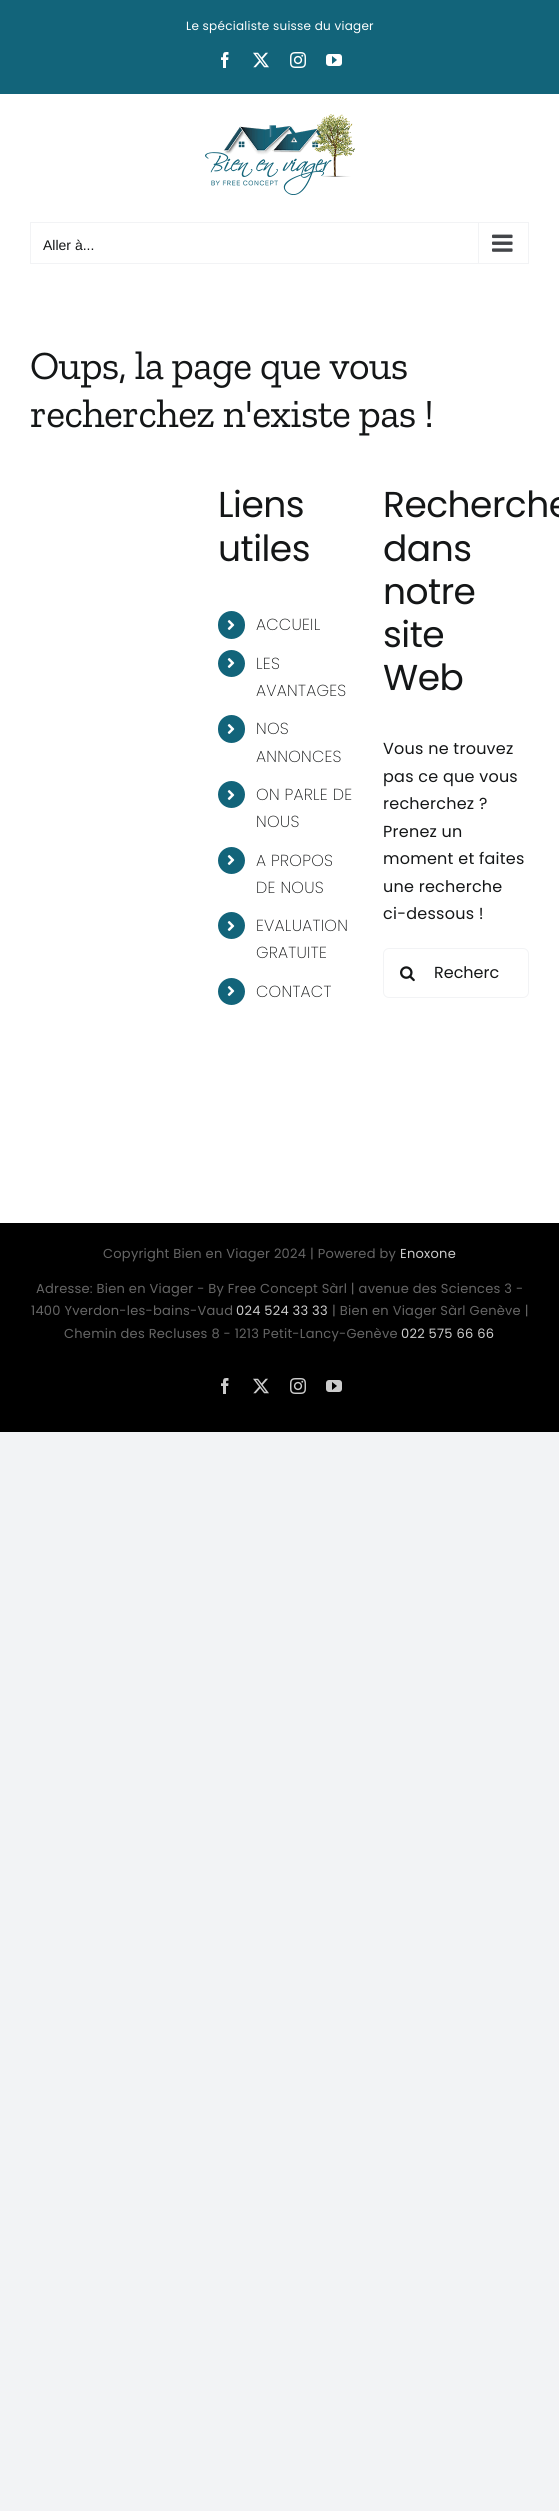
#include <cairo/cairo.h>
#include <math.h>
#include <stddef.h>

static cairo_t *cr;

static void use_color(int r, int g, int b) {
  cairo_set_source_rgb(cr, r / 255.0, g / 255.0, b / 255.0);
}

static void text(double x, double y, const char *s, const char *family, double size, int italic, int bold, int r, int g, int b) {
  cairo_select_font_face(cr, family, italic ? CAIRO_FONT_SLANT_ITALIC : CAIRO_FONT_SLANT_NORMAL,
    bold ? CAIRO_FONT_WEIGHT_BOLD : CAIRO_FONT_WEIGHT_NORMAL);
  cairo_set_font_size(cr, size);
  use_color(r, g, b);
  cairo_move_to(cr, x, y);
  cairo_show_text(cr, s);
}

static void spaced_text(double x, double y, const char *s, double letter, double word) {
  cairo_move_to(cr, x, y);
  while (*s) {
    char ch[5] = {0};
    int n = 0;
    do ch[n++] = *s++; while ((*s & 0xC0) == 0x80);
    cairo_show_text(cr, ch);
    cairo_rel_move_to(cr, letter + word * (*ch == ' '), 0);
  }
}

static void box(double x, double y, double w, double h, int r, int g, int b) {
  use_color(r, g, b);
  cairo_rectangle(cr, x, y, w, h);
  cairo_fill(cr);
}

static void round_rect(double x, double y, double w, double h, double r) {
  cairo_new_sub_path(cr);
  cairo_arc(cr, x + w - r, y + h - r, r, 0, M_PI / 2);
  cairo_arc(cr, x + r, y + h - r, r, M_PI / 2, M_PI);
  cairo_arc(cr, x + r, y + r, r, M_PI, 1.5 * M_PI);
  cairo_arc(cr, x + w - r, y + r, r, 1.5 * M_PI, 2 * M_PI);
  cairo_close_path(cr);
}

static void picture(const char *path, double x, double y, double w, double h) {
  cairo_surface_t *image = cairo_image_surface_create_from_png(path);
  cairo_save(cr);
  cairo_set_source_surface(cr, image, x, y);
  cairo_rectangle(cr, x, y, w, h);
  cairo_fill(cr);
  cairo_restore(cr);
  cairo_surface_destroy(image);
}

static void draw(void) {
  use_color(242, 243, 245);
  cairo_paint(cr);
  box(0, 94, 559, 1129, 255, 255, 255);
  box(0, 0, 559, 94, 18, 100, 122);
  picture("img_01.png", 221, 52, 8, 16);
  picture("img_02.png", 253, 52, 16, 16);
  picture("img_03.png", 290, 52, 16, 16);
  picture("img_04.png", 326, 54, 16, 12);
  picture("img_05.png", 205, 114, 150, 81);
  cairo_rectangle(cr, 30.5, 222.5, 498, 41);
  use_color(242, 243, 245);
  cairo_set_line_width(cr, 1);
  cairo_stroke(cr);
  box(478, 223, 1, 40, 242, 243, 245);
  picture("img_06.png", 492, 234, 21, 18);
  use_color(18, 100, 122);
  round_rect(218, 611, 27, 28, 13.5);
  cairo_fill(cr);
  picture("img_07.png", 227, 620, 8, 10);
  cairo_arc(cr, 231.5, 663.5, 13.5, 0, 2 * M_PI);
  cairo_fill(cr);
  picture("img_07.png", 227, 658, 8, 10);
  round_rect(218, 715, 27, 28, 13.5);
  cairo_fill(cr);
  picture("img_07.png", 227, 724, 8, 10);
  cairo_arc(cr, 231.5, 794.5, 13.5, 0, 2 * M_PI);
  cairo_fill(cr);
  picture("img_07.png", 227, 790, 8, 10);
  cairo_arc(cr, 231.5, 860.5, 13.5, 0, 2 * M_PI);
  cairo_fill(cr);
  picture("img_07.png", 227, 855, 8, 10);
  cairo_arc(cr, 231.5, 925.5, 13.5, 0, 2 * M_PI);
  cairo_fill(cr);
  picture("img_07.png", 227, 921, 8, 10);
  cairo_arc(cr, 231.5, 991.5, 13.5, 0, 2 * M_PI);
  cairo_fill(cr);
  picture("img_07.png", 227, 986, 8, 10);
  round_rect(383.5, 948.5, 145, 49, 5.5);
  use_color(242, 243, 245);
  cairo_stroke(cr);
  picture("img_08.png", 400, 966, 15, 16);
  box(0, 1223, 559, 209, 0, 0, 0);
  picture("img_09.png", 221, 1378, 8, 16);
  picture("img_10.png", 253, 1378, 16, 16);
  picture("img_11.png", 290, 1378, 16, 16);
  picture("img_12.png", 326, 1380, 16, 12);
  cairo_select_font_face(cr, "Poppins", CAIRO_FONT_SLANT_NORMAL, CAIRO_FONT_WEIGHT_NORMAL);
  cairo_set_font_size(cr, 12);
  use_color(255, 255, 255);
  spaced_text(186, 30, "Le spécialiste suisse du viager", 0.25, 0);
  text(43, 250, "Aller à...", "Liberation Sans", 14, 0, 0, 20, 22, 23);
  cairo_select_font_face(cr, "Zilla Slab", CAIRO_FONT_SLANT_NORMAL, CAIRO_FONT_WEIGHT_NORMAL);
  cairo_set_font_size(cr, 40);
  spaced_text(30, 379, "Oups, la page que vous", -0.6, 0);
  spaced_text(30, 427, "recherchez n'existe pas !", -0.6, 0);
  cairo_select_font_face(cr, "Poppins", CAIRO_FONT_SLANT_NORMAL, CAIRO_FONT_WEIGHT_NORMAL);
  cairo_set_font_size(cr, 36);
  spaced_text(218, 517, "Liens", -0.5, 0);
  spaced_text(218, 561, "utiles", -0.5, 0);
  cairo_select_font_face(cr, "Poppins ExtraLight", CAIRO_FONT_SLANT_NORMAL, CAIRO_FONT_WEIGHT_NORMAL);
  cairo_set_font_size(cr, 16);
  spaced_text(256, 630, "ACCUEIL", 0.25, 0);
  spaced_text(256, 669, "LES", 0.25, 0);
  spaced_text(256, 696, "AVANTAGES", 0.25, 0);
  spaced_text(256, 734, "NOS", 0.25, 0);
  spaced_text(256, 762, "ANNONCES", 0.25, 0);
  spaced_text(256, 800, "ON PARLE DE", 0.25, 0);
  spaced_text(256, 827, "NOUS", 0.25, 0);
  spaced_text(256, 866, "A PROPOS", 0.25, 0);
  spaced_text(256, 893, "DE NOUS", 0.25, 0);
  spaced_text(256, 931, "EVALUATION", 0.25, 0);
  spaced_text(256, 958, "GRATUITE", 0.25, 0);
  spaced_text(256, 997, "CONTACT", 0.25, 0);
  cairo_select_font_face(cr, "Poppins", CAIRO_FONT_SLANT_NORMAL, CAIRO_FONT_WEIGHT_NORMAL);
  cairo_set_font_size(cr, 36);
  spaced_text(383, 517, "Recherche", -0.5, 0);
  spaced_text(383, 561, "dans", -0.5, 0);
  spaced_text(383, 604, "notre", -0.5, 0);
  spaced_text(383, 647, "site", -0.5, 0);
  spaced_text(383, 690, "Web", -0.5, 0);
  cairo_set_font_size(cr, 16);
  spaced_text(383, 754, "Vous ne trouvez", 0.25, 0);
  spaced_text(383, 782, "pas ce que vous", 0.25, 0);
  spaced_text(383, 809, "recherchez ?", 0.25, 0);
  spaced_text(383, 837, "Prenez un", 0.25, 0);
  spaced_text(383, 864, "moment et faites", 0.25, 0);
  spaced_text(383, 892, "une recherche", 0.25, 0);
  spaced_text(383, 919, "ci-dessous !", 0.25, 0);
  text(434, 978, "Recherc", "Poppins", 16, 0, 0, 20, 22, 23);
  cairo_set_font_size(cr, 13);
  use_color(102, 102, 102);
  spaced_text(103, 1258, "Copyright Bien en Viager 2024 | Powered by", 0.25, 0);
  use_color(204, 204, 204);
  spaced_text(400, 1258, "Enoxone", 0.25, 0);
  use_color(102, 102, 102);
  spaced_text(36, 1293, "Adresse: Bien en Viager - By Free Concept Sàrl | avenue des Sciences 3 -", 0.25, 0);
  spaced_text(31, 1315, "1400 Yverdon-les-bains-Vaud", 0.25, 0);
  use_color(204, 204, 204);
  spaced_text(236, 1315, "024 524 33 33", 0.25, 0);
  use_color(102, 102, 102);
  spaced_text(332, 1315, "| Bien en Viager Sàrl Genève |", 0.25, 0);
  spaced_text(64, 1338, "Chemin des Recluses 8 - 1213 Petit-Lancy-Genève", 0.25, 0);
  use_color(204, 204, 204);
  spaced_text(401, 1338, "022 575 66 66", 0.25, 0);
}

int main(void) {
  cairo_surface_t *surface = cairo_image_surface_create(CAIRO_FORMAT_RGB24, 559, 2511);
  cr = cairo_create(surface);
  cairo_font_options_t *options = cairo_font_options_create();
  cairo_font_options_set_hint_metrics(options, CAIRO_HINT_METRICS_OFF);
  cairo_font_options_set_hint_style(options, CAIRO_HINT_STYLE_NONE);
  cairo_set_font_options(cr, options);
  cairo_set_miter_limit(cr, 4);
  draw();
  cairo_surface_write_to_png(surface, "out.png");
  cairo_font_options_destroy(options);
  cairo_destroy(cr);
  cairo_surface_destroy(surface);
  return 0;
}
